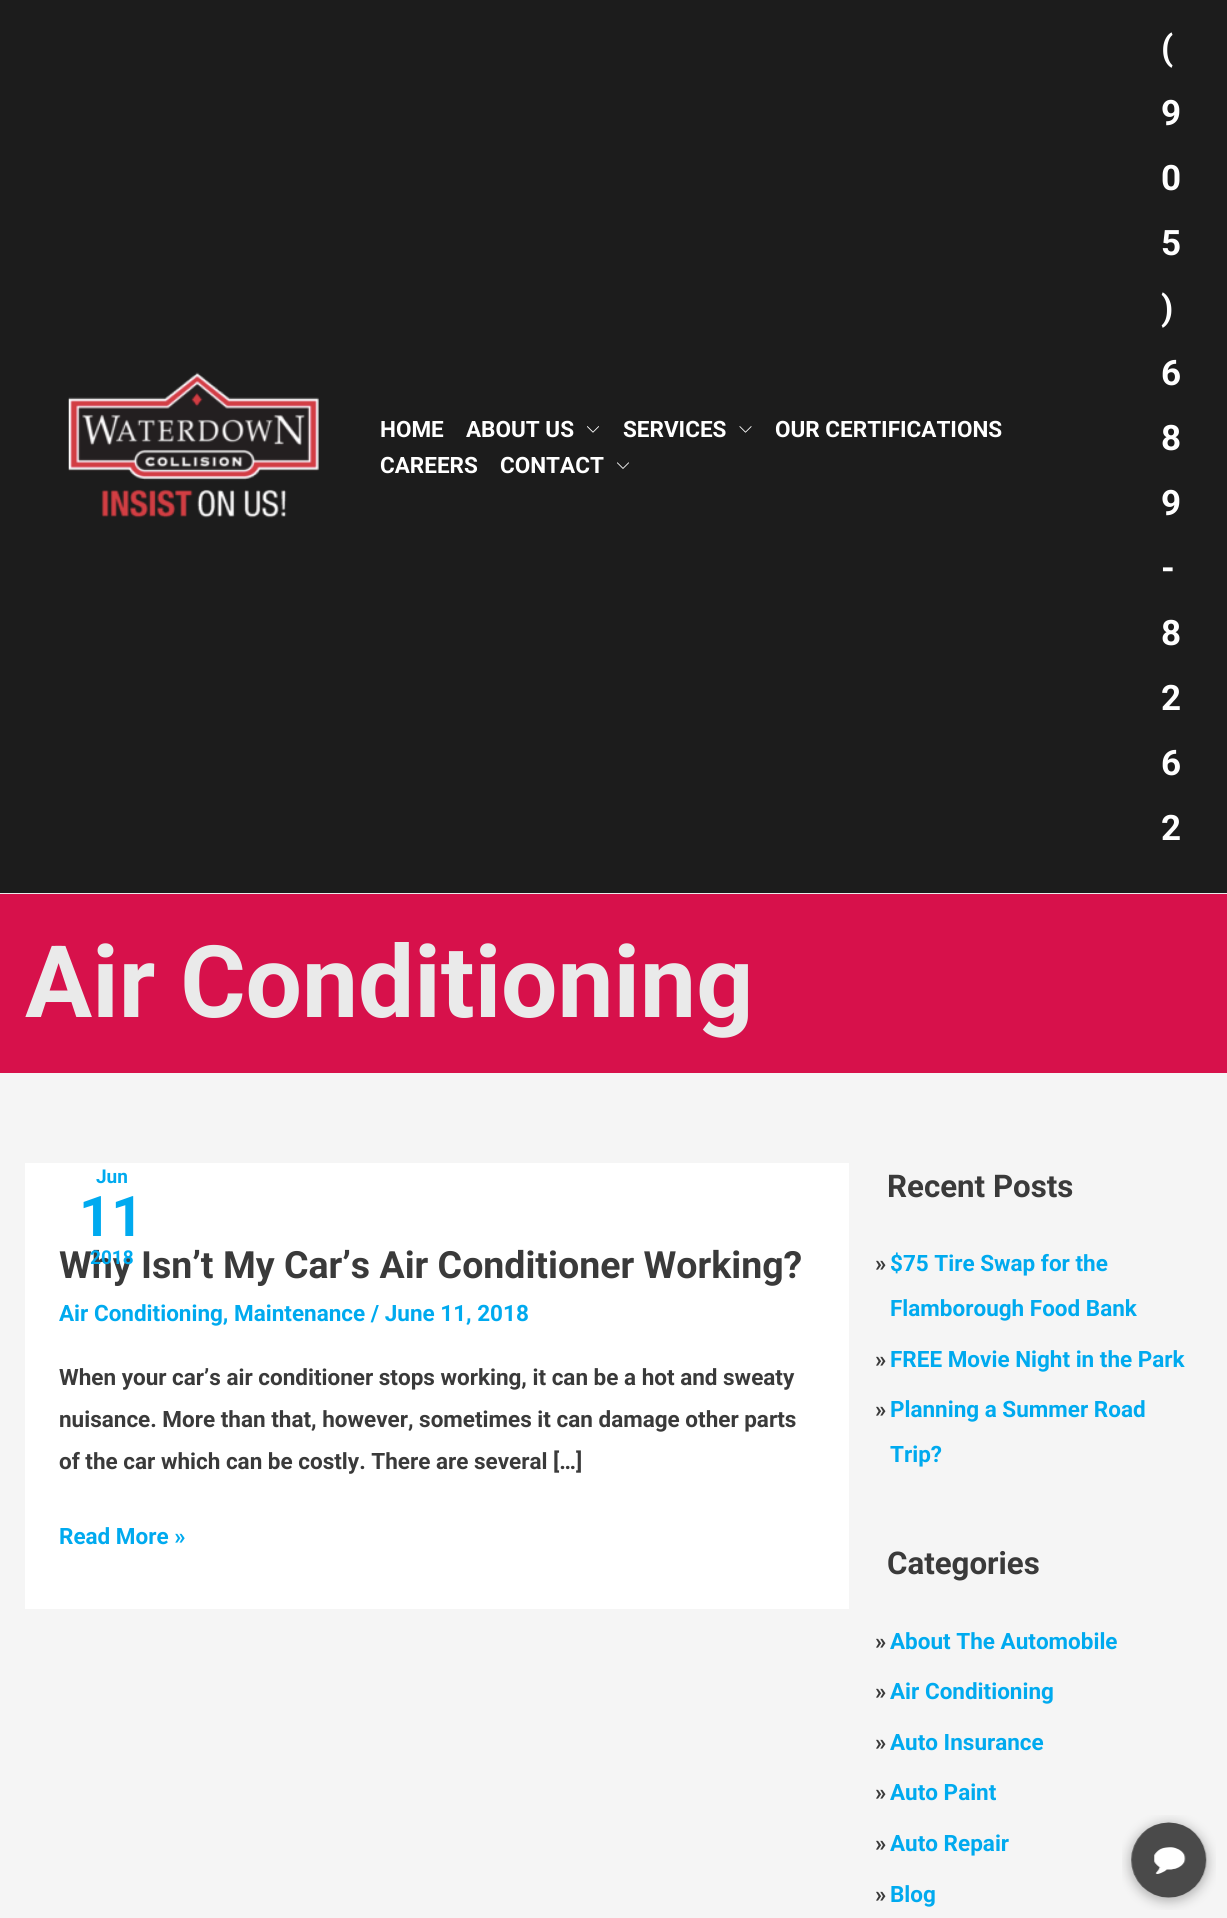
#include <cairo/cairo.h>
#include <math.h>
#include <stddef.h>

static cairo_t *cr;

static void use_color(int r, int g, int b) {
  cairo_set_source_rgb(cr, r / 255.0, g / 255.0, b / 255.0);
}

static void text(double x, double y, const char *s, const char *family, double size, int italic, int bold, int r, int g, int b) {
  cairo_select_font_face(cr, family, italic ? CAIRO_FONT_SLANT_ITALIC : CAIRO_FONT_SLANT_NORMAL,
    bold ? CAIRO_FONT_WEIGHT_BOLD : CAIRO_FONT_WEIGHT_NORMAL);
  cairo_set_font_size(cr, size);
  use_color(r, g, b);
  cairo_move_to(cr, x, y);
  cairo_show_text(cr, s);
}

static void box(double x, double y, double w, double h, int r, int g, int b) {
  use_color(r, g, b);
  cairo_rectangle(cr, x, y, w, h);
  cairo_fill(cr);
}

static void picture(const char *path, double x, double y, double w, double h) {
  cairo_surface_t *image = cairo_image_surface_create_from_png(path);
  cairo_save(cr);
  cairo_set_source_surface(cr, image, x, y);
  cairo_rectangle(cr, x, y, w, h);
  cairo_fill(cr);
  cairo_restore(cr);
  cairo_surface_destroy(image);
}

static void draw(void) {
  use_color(245, 245, 245);
  cairo_paint(cr);
  box(0, 0, 1227, 893, 28, 28, 28);
  box(0, 893, 1227, 1, 234, 234, 234);
  picture("img_01.png", 68, 372, 251, 146);
  picture("img_02.png", 587, 426, 12, 7);
  picture("img_03.png", 739, 426, 13, 7);
  picture("img_04.png", 617, 462, 12, 7);
  box(0, 894, 1227, 179, 215, 17, 75);
  box(25, 1163, 824, 446, 255, 255, 255);
  picture("img_05.png", 1122, 1815, 94, 95);
  text(380, 437, "HOME", "Roboto", 22.5, 0, 1, 255, 255, 255);
  text(466, 437, "ABOUT US", "Roboto", 22.5, 0, 1, 255, 255, 255);
  text(623, 437, "SERVICES", "Roboto", 22.5, 0, 1, 255, 255, 255);
  text(775, 437, "OUR CERTIFICATIONS", "Roboto", 22.5, 0, 1, 255, 255, 255);
  text(380, 473, "CAREERS", "Roboto", 22.5, 0, 1, 255, 255, 255);
  text(500, 473, "CONTACT", "Roboto", 22.5, 0, 1, 255, 255, 255);
  text(1161, 60, "(", "Roboto", 35, 0, 1, 255, 255, 255);
  text(1161, 125, "9", "Roboto", 35, 0, 1, 255, 255, 255);
  text(1161, 190, "0", "Roboto", 35, 0, 1, 255, 255, 255);
  text(1161, 255, "5", "Roboto", 35, 0, 1, 255, 255, 255);
  text(1161, 320, ")", "Roboto", 35, 0, 1, 255, 255, 255);
  text(1161, 385, "6", "Roboto", 35, 0, 1, 255, 255, 255);
  text(1161, 450, "8", "Roboto", 35, 0, 1, 255, 255, 255);
  text(1161, 515, "9", "Roboto", 35, 0, 1, 255, 255, 255);
  text(1161, 580, "-", "Roboto", 35, 0, 1, 255, 255, 255);
  text(1161, 645, "8", "Roboto", 35, 0, 1, 255, 255, 255);
  text(1161, 710, "2", "Roboto", 35, 0, 1, 255, 255, 255);
  text(1161, 775, "6", "Roboto", 35, 0, 1, 255, 255, 255);
  text(1161, 840, "2", "Roboto", 35, 0, 1, 255, 255, 255);
  text(25, 1017, "Air Conditioning", "Roboto", 100, 0, 1, 234, 234, 234);
  text(96, 1183, "Jun", "Roboto", 19, 0, 1, 0, 170, 239);
  text(79, 1236, "11", "Roboto", 56, 0, 1, 0, 170, 239);
  text(59, 1278, "Why Isn’t My Car’s Air Conditioner Working?", "Roboto", 37.5, 0, 1, 58, 58, 58);
  text(90, 1264, "2018", "Roboto", 19, 0, 1, 0, 170, 239);
  text(59, 1321, "Air Conditioning, Maintenance / June 11, 2018", "Roboto", 22.5, 0, 1, 0, 170, 239);
  text(59, 1385, "When your car’s air conditioner stops working, it can be a hot and sweaty", "Roboto", 22.5, 0, 1, 58, 58, 58);
  text(59, 1427, "nuisance. More than that, however, sometimes it can damage other parts", "Roboto", 22.5, 0, 1, 58, 58, 58);
  text(59, 1469, "of the car which can be costly. There are several […]", "Roboto", 22.5, 0, 1, 58, 58, 58);
  text(59, 1544, "Read More »", "Roboto", 22.5, 0, 1, 0, 170, 239);
  text(887, 1197, "Recent Posts", "Roboto", 31.25, 0, 1, 58, 58, 58);
  text(875, 1271, "»", "Roboto", 22.5, 0, 1, 58, 58, 58);
  text(890, 1271, "$75 Tire Swap for the", "Roboto", 22.5, 0, 1, 0, 170, 239);
  text(890, 1316, "Flamborough Food Bank", "Roboto", 22.5, 0, 1, 0, 170, 239);
  text(875, 1367, "»", "Roboto", 22.5, 0, 1, 58, 58, 58);
  text(890, 1367, "FREE Movie Night in the Park", "Roboto", 22.5, 0, 1, 0, 170, 239);
  text(875, 1417, "»", "Roboto", 22.5, 0, 1, 58, 58, 58);
  text(890, 1417, "Planning a Summer Road", "Roboto", 22.5, 0, 1, 0, 170, 239);
  text(890, 1462, "Trip?", "Roboto", 22.5, 0, 1, 0, 170, 239);
  text(887, 1574, "Categories", "Roboto", 31.25, 0, 1, 58, 58, 58);
  text(875, 1649, "»", "Roboto", 22.5, 0, 1, 58, 58, 58);
  text(890, 1649, "About The Automobile", "Roboto", 22.5, 0, 1, 0, 170, 239);
  text(875, 1699, "»", "Roboto", 22.5, 0, 1, 58, 58, 58);
  text(890, 1699, "Air Conditioning", "Roboto", 22.5, 0, 1, 0, 170, 239);
  text(875, 1750, "»", "Roboto", 22.5, 0, 1, 58, 58, 58);
  text(890, 1750, "Auto Insurance", "Roboto", 22.5, 0, 1, 0, 170, 239);
  text(875, 1800, "»", "Roboto", 22.5, 0, 1, 58, 58, 58);
  text(890, 1800, "Auto Paint", "Roboto", 22.5, 0, 1, 0, 170, 239);
  text(875, 1851, "»", "Roboto", 22.5, 0, 1, 58, 58, 58);
  text(890, 1851, "Auto Repair", "Roboto", 22.5, 0, 1, 0, 170, 239);
  text(875, 1902, "»", "Roboto", 22.5, 0, 1, 58, 58, 58);
  text(890, 1902, "Blog", "Roboto", 22.5, 0, 1, 0, 170, 239);
}

int main(void) {
  cairo_surface_t *surface = cairo_image_surface_create(CAIRO_FORMAT_RGB24, 1227, 1918);
  cr = cairo_create(surface);
  cairo_font_options_t *options = cairo_font_options_create();
  cairo_font_options_set_hint_metrics(options, CAIRO_HINT_METRICS_OFF);
  cairo_font_options_set_hint_style(options, CAIRO_HINT_STYLE_NONE);
  cairo_set_font_options(cr, options);
  cairo_set_miter_limit(cr, 4);
  draw();
  cairo_surface_write_to_png(surface, "out.png");
  cairo_font_options_destroy(options);
  cairo_destroy(cr);
  cairo_surface_destroy(surface);
  return 0;
}
